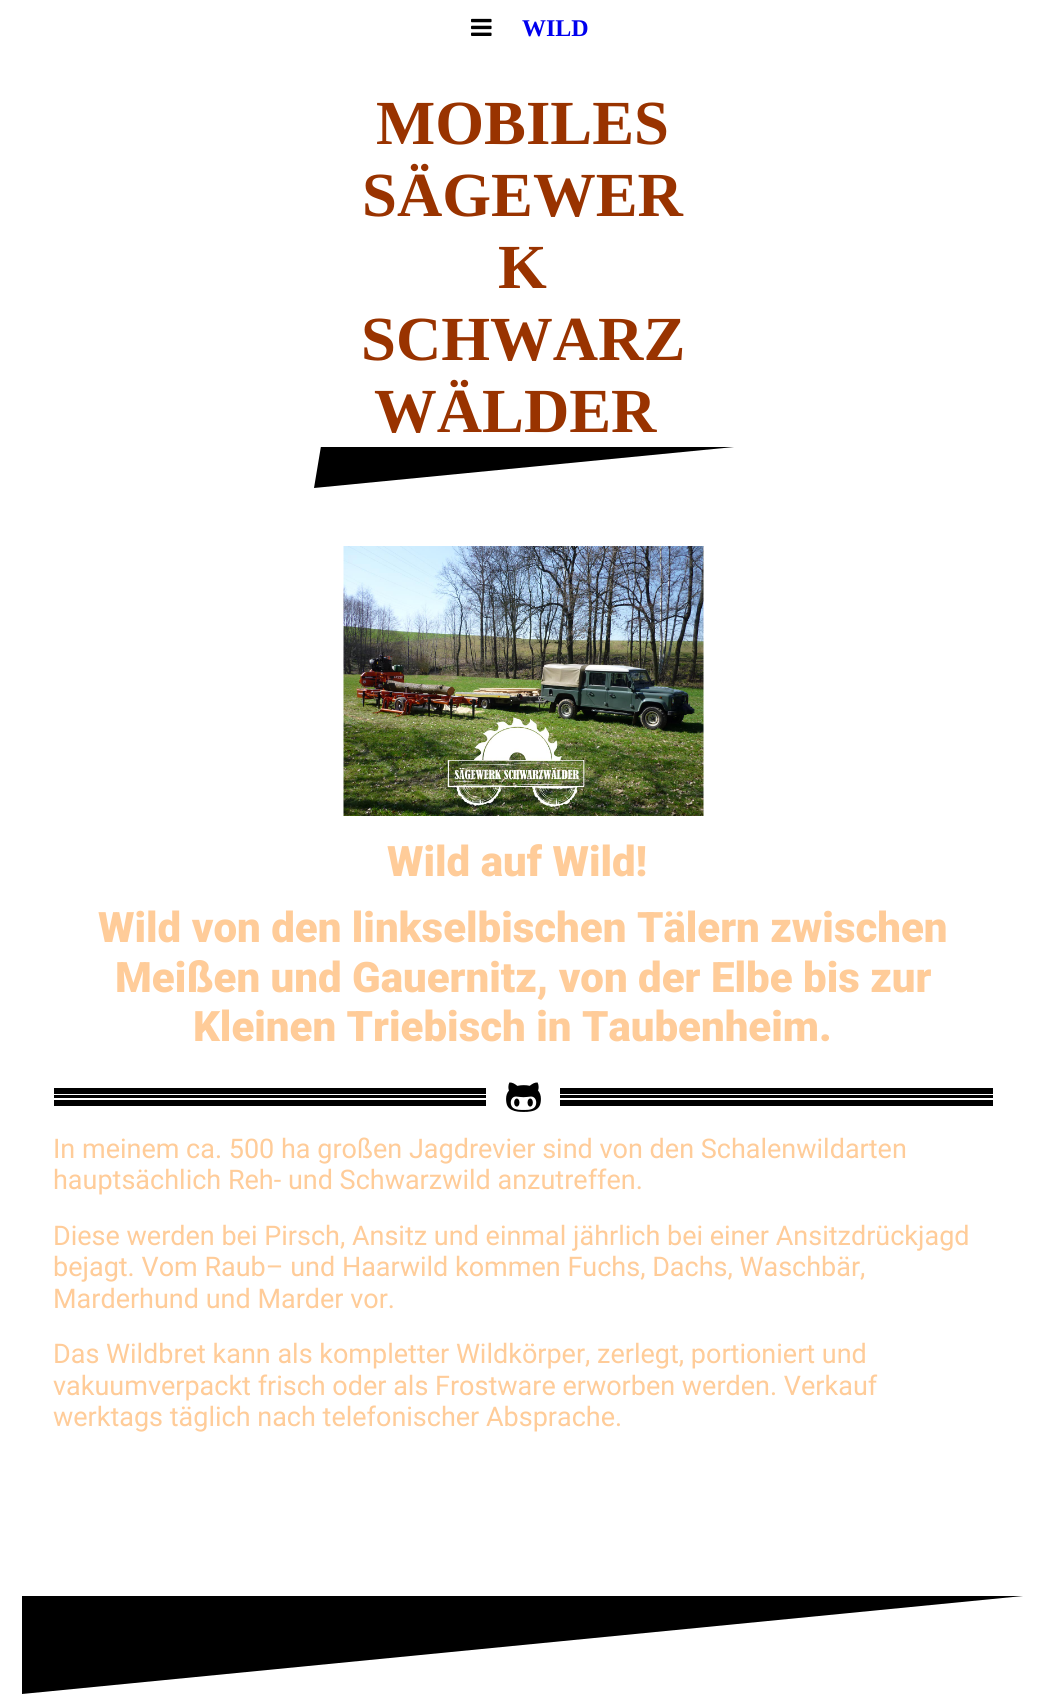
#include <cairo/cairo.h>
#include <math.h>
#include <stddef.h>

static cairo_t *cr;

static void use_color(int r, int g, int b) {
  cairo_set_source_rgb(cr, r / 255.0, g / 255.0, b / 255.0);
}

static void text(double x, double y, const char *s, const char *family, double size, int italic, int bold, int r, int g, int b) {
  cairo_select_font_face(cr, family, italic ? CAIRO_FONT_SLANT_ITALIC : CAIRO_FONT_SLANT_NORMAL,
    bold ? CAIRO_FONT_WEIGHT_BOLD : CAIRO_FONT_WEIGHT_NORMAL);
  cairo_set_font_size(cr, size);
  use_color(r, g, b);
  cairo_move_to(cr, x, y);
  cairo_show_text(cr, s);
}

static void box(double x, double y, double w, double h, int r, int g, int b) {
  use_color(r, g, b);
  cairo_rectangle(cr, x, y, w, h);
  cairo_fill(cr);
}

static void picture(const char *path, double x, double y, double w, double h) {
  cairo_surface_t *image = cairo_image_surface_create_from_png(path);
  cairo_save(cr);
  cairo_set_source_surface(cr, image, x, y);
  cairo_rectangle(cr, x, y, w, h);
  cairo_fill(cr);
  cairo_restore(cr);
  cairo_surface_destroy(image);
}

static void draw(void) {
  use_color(255, 255, 255);
  cairo_paint(cr);
  picture("img_01.png", 471, 18, 21, 18);
  use_color(0, 0, 0);
  cairo_new_path(cr);
  cairo_move_to(cr, 314, 488);
  cairo_line_to(cr, 314, 447);
  cairo_line_to(cr, 734, 447);
  cairo_close_path(cr);
  cairo_fill(cr);
  use_color(255, 255, 255);
  cairo_new_path(cr);
  cairo_move_to(cr, 314, 488);
  cairo_line_to(cr, 314, 87);
  cairo_line_to(cr, 381, 87);
  cairo_close_path(cr);
  cairo_fill(cr);
  picture("img_02.png", 343, 546, 361, 270);
  box(54, 1088, 432, 6, 0, 0, 0);
  box(54, 1100, 432, 6, 0, 0, 0);
  box(54, 1095, 432, 3, 0, 0, 0);
  picture("img_03.png", 506, 1082, 35, 30);
  box(560, 1088, 433, 6, 0, 0, 0);
  box(560, 1100, 433, 6, 0, 0, 0);
  box(560, 1095, 433, 3, 0, 0, 0);
  cairo_new_path(cr);
  cairo_move_to(cr, 22, 1694);
  cairo_line_to(cr, 22, 1596);
  cairo_line_to(cr, 1023, 1596);
  cairo_close_path(cr);
  cairo_fill(cr);
  text(522, 36, "WILD", "Liberation Serif", 24, 0, 1, 0, 0, 238);
  text(376, 144, "MOBILES", "Liberation Serif", 62.75, 0, 1, 153, 51, 0);
  text(362, 216, "SÄGEWER", "Liberation Serif", 62.75, 0, 1, 153, 51, 0);
  text(498, 288, "K", "Liberation Serif", 62.75, 0, 1, 153, 51, 0);
  text(361, 360, "SCHWARZ", "Liberation Serif", 62.75, 0, 1, 153, 51, 0);
  text(374, 432, "WÄLDER", "Liberation Serif", 62.75, 0, 1, 153, 51, 0);
  text(387, 876, "Wild auf Wild!", "Roboto Black", 42, 0, 0, 255, 204, 153);
  text(98, 942, "Wild von den linkselbischen Tälern zwischen", "Roboto Black", 42, 0, 0, 255, 204, 153);
  text(115, 992, "Meißen und Gauernitz, von der Elbe bis zur", "Roboto Black", 42, 0, 0, 255, 204, 153);
  text(193, 1041, "Kleinen Triebisch in Taubenheim.", "Roboto Black", 42, 0, 0, 255, 204, 153);
  text(53, 1158, "In meinem ca. 500 ha großen Jagdrevier sind von den Schalenwildarten", "Roboto", 27, 0, 0, 255, 204, 153);
  text(53, 1189, "hauptsächlich Reh- und Schwarzwild anzutreffen.", "Roboto", 27, 0, 0, 255, 204, 153);
  text(53, 1245, "Diese werden bei Pirsch, Ansitz und einmal jährlich bei einer Ansitzdrückjagd", "Roboto", 27, 0, 0, 255, 204, 153);
  text(53, 1276, "bejagt. Vom Raub– und Haarwild kommen Fuchs, Dachs, Waschbär,", "Roboto", 27, 0, 0, 255, 204, 153);
  text(53, 1308, "Marderhund und Marder vor.", "Roboto", 27, 0, 0, 255, 204, 153);
  text(53, 1363, "Das Wildbret kann als kompletter Wildkörper, zerlegt, portioniert und", "Roboto", 27, 0, 0, 255, 204, 153);
  text(53, 1395, "vakuumverpackt frisch oder als Frostware erworben werden. Verkauf", "Roboto", 27, 0, 0, 255, 204, 153);
  text(53, 1426, "werktags täglich nach telefonischer Absprache.", "Roboto", 27, 0, 0, 255, 204, 153);
}

int main(void) {
  cairo_surface_t *surface = cairo_image_surface_create(CAIRO_FORMAT_RGB24, 1045, 1698);
  cr = cairo_create(surface);
  cairo_font_options_t *options = cairo_font_options_create();
  cairo_font_options_set_hint_metrics(options, CAIRO_HINT_METRICS_OFF);
  cairo_font_options_set_hint_style(options, CAIRO_HINT_STYLE_NONE);
  cairo_set_font_options(cr, options);
  cairo_set_miter_limit(cr, 4);
  draw();
  cairo_surface_write_to_png(surface, "out.png");
  cairo_font_options_destroy(options);
  cairo_destroy(cr);
  cairo_surface_destroy(surface);
  return 0;
}
